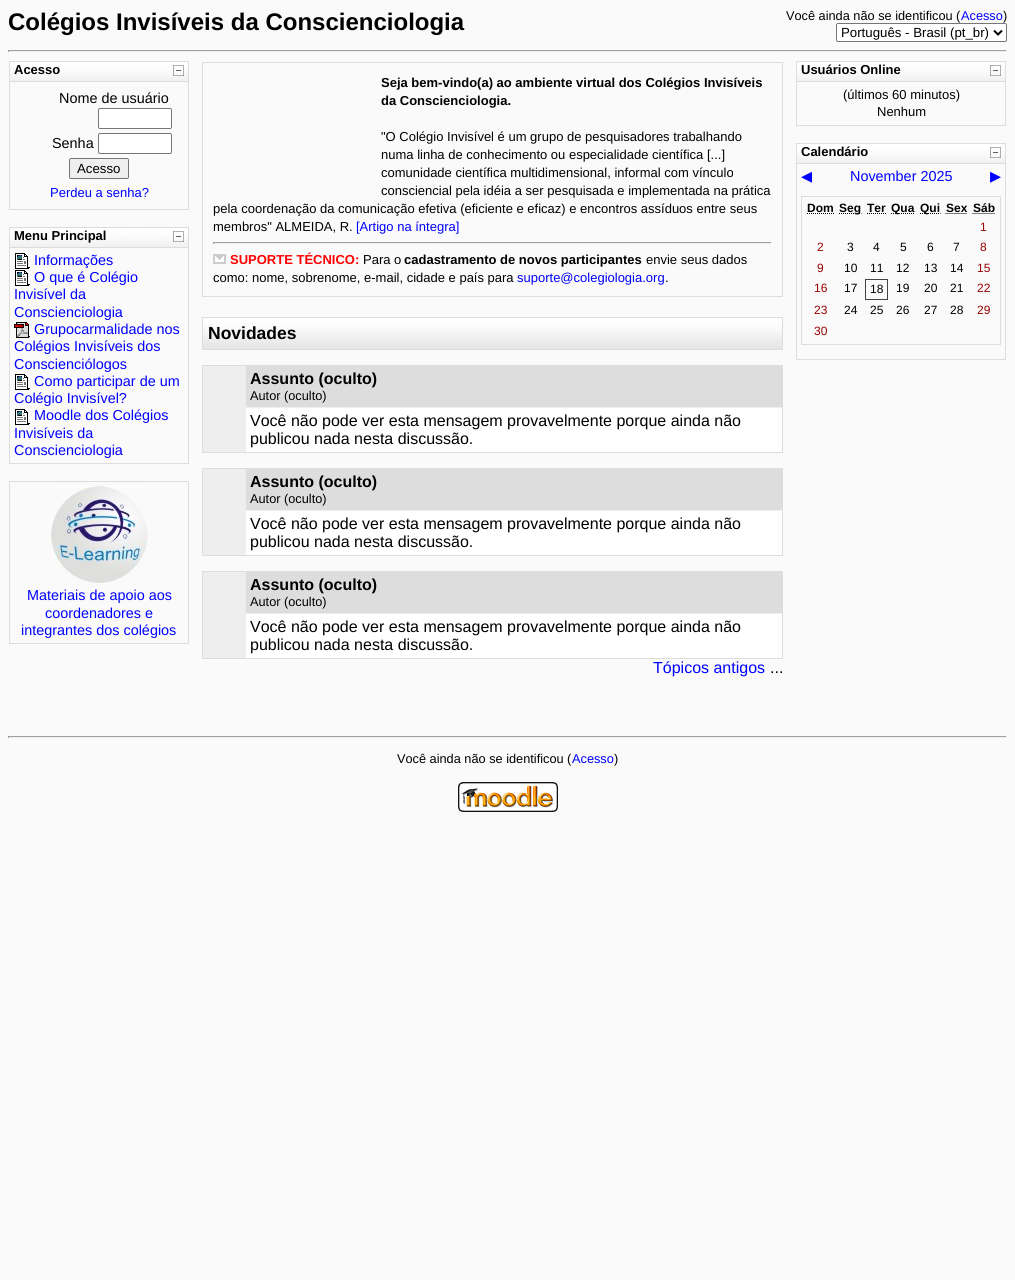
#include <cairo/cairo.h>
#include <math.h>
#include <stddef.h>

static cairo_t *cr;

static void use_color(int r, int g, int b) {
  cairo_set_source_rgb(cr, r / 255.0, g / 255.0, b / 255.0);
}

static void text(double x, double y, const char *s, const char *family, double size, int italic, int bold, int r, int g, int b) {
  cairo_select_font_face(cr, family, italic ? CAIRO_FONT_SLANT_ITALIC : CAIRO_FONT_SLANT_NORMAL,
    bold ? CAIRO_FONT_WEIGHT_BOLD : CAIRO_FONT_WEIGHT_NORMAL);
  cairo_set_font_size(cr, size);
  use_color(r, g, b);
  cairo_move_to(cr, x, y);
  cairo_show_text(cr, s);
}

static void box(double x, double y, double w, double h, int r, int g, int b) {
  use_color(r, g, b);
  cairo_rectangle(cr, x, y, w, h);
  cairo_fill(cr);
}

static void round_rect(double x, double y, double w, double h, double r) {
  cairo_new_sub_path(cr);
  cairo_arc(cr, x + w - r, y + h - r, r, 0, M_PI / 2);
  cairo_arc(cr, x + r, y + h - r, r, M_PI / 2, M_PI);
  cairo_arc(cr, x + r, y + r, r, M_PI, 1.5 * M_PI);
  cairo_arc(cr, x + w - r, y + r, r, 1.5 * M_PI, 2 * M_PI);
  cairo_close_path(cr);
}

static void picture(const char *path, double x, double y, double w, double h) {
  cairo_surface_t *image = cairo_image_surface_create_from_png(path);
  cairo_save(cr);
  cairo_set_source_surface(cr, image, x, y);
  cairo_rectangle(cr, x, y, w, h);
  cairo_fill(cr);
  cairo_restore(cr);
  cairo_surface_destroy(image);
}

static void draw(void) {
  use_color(250, 250, 250);
  cairo_paint(cr);
  use_color(255, 255, 255);
  round_rect(836.5, 23.5, 170, 18, 1.5);
  cairo_fill_preserve(cr);
  use_color(118, 118, 118);
  cairo_set_line_width(cr, 1);
  cairo_stroke(cr);
  cairo_new_path(cr);
  cairo_move_to(cr, 994, 30.5);
  cairo_line_to(cr, 998, 34.5);
  cairo_line_to(cr, 1002, 30.5);
  use_color(0, 0, 0);
  cairo_set_line_width(cr, 2);
  cairo_stroke(cr);
  box(8, 50, 999, 1, 159, 159, 159);
  box(1006, 50, 1, 2, 238, 238, 238);
  box(8, 51, 999, 1, 238, 238, 238);
  box(8, 50, 1, 2, 159, 159, 159);
  picture("img_01.png", 10, 62, 178, 19);
  box(9, 61, 180, 1, 221, 221, 221);
  box(188, 61, 1, 20, 221, 221, 221);
  box(9, 61, 1, 20, 221, 221, 221);
  picture("img_02.png", 173, 65, 11, 11);
  cairo_rectangle(cr, 9.5, 81.5, 179, 128);
  cairo_set_line_width(cr, 1);
  cairo_stroke(cr);
  use_color(255, 255, 255);
  round_rect(98.5, 108.5, 73, 20, 1.5);
  cairo_fill_preserve(cr);
  use_color(118, 118, 118);
  cairo_stroke(cr);
  use_color(255, 255, 255);
  round_rect(98.5, 133.5, 73, 20, 1.5);
  cairo_fill_preserve(cr);
  use_color(118, 118, 118);
  cairo_stroke(cr);
  use_color(239, 239, 239);
  round_rect(69.5, 158.5, 59, 20, 1.5);
  cairo_fill_preserve(cr);
  use_color(118, 118, 118);
  cairo_stroke(cr);
  picture("img_01.png", 10, 228, 178, 19);
  box(9, 227, 180, 1, 221, 221, 221);
  box(188, 227, 1, 20, 221, 221, 221);
  box(9, 227, 1, 20, 221, 221, 221);
  picture("img_02.png", 173, 231, 11, 11);
  cairo_rectangle(cr, 9.5, 247.5, 179, 216);
  cairo_stroke(cr);
  picture("img_03.png", 15, 253, 15, 16);
  picture("img_03.png", 15, 270, 15, 16);
  picture("img_04.png", 14, 322, 16, 16);
  picture("img_03.png", 15, 374, 15, 16);
  picture("img_03.png", 15, 409, 15, 16);
  cairo_rectangle(cr, 9.5, 481.5, 179, 162);
  cairo_stroke(cr);
  picture("img_05.png", 51, 486, 97, 97);
  cairo_rectangle(cr, 202.5, 62.5, 580, 234);
  cairo_stroke(cr);
  box(213, 242, 559, 1, 159, 159, 159);
  box(771, 242, 1, 2, 238, 238, 238);
  box(213, 243, 559, 1, 238, 238, 238);
  box(213, 242, 1, 2, 159, 159, 159);
  picture("img_06.png", 213, 254, 13, 10);
  picture("img_07.png", 203, 318, 579, 31);
  cairo_rectangle(cr, 202.5, 317.5, 580, 32);
  use_color(221, 221, 221);
  cairo_stroke(cr);
  cairo_rectangle(cr, 202.5, 365.5, 580, 87);
  cairo_stroke(cr);
  box(203, 366, 43, 86, 238, 238, 238);
  box(246, 366, 536, 41, 221, 221, 221);
  box(246, 407, 536, 1, 238, 238, 238);
  box(246, 408, 536, 44, 255, 255, 255);
  cairo_rectangle(cr, 202.5, 468.5, 580, 87);
  use_color(221, 221, 221);
  cairo_stroke(cr);
  box(203, 469, 43, 86, 238, 238, 238);
  box(246, 469, 536, 41, 221, 221, 221);
  box(246, 510, 536, 1, 238, 238, 238);
  box(246, 511, 536, 44, 255, 255, 255);
  cairo_rectangle(cr, 202.5, 571.5, 580, 87);
  use_color(221, 221, 221);
  cairo_stroke(cr);
  box(203, 572, 43, 86, 238, 238, 238);
  box(246, 572, 536, 41, 221, 221, 221);
  box(246, 613, 536, 1, 238, 238, 238);
  box(246, 614, 536, 44, 255, 255, 255);
  picture("img_08.png", 797, 62, 208, 19);
  box(796, 61, 210, 1, 221, 221, 221);
  box(1005, 61, 1, 20, 221, 221, 221);
  box(796, 61, 1, 20, 221, 221, 221);
  picture("img_09.png", 990, 65, 11, 11);
  cairo_rectangle(cr, 796.5, 81.5, 209, 44);
  cairo_stroke(cr);
  picture("img_08.png", 797, 144, 208, 19);
  box(796, 143, 210, 1, 221, 221, 221);
  box(1005, 143, 1, 20, 221, 221, 221);
  box(796, 143, 1, 20, 221, 221, 221);
  picture("img_09.png", 990, 147, 11, 11);
  cairo_rectangle(cr, 796.5, 163.5, 209, 196);
  cairo_stroke(cr);
  cairo_rectangle(cr, 801.5, 196.5, 199, 148);
  cairo_stroke(cr);
  cairo_new_path(cr);
  cairo_move_to(cr, 807, 213.5);
  cairo_line_to(cr, 834, 213.5);
  use_color(0, 0, 0);
  cairo_set_dash(cr, (double[]){1, 1}, 2, 0);
  cairo_stroke(cr);
  cairo_new_path(cr);
  cairo_move_to(cr, 839, 213.5);
  cairo_line_to(cr, 861.5, 213.5);
  cairo_stroke(cr);
  cairo_new_path(cr);
  cairo_move_to(cr, 867, 213.5);
  cairo_line_to(cr, 886, 213.5);
  cairo_stroke(cr);
  cairo_new_path(cr);
  cairo_move_to(cr, 891, 213.5);
  cairo_line_to(cr, 915, 213.5);
  cairo_stroke(cr);
  cairo_new_path(cr);
  cairo_move_to(cr, 920, 213.5);
  cairo_line_to(cr, 940.5, 213.5);
  cairo_stroke(cr);
  cairo_new_path(cr);
  cairo_move_to(cr, 945.5, 213.5);
  cairo_line_to(cr, 967.5, 213.5);
  cairo_stroke(cr);
  cairo_new_path(cr);
  cairo_move_to(cr, 972.5, 213.5);
  cairo_line_to(cr, 995, 213.5);
  cairo_stroke(cr);
  cairo_rectangle(cr, 865.5, 279.5, 22, 20);
  use_color(68, 68, 68);
  cairo_set_dash(cr, NULL, 0, 0);
  cairo_stroke(cr);
  box(8, 736, 999, 1, 159, 159, 159);
  box(1006, 736, 1, 2, 238, 238, 238);
  box(8, 737, 999, 1, 238, 238, 238);
  box(8, 736, 1, 2, 159, 159, 159);
  picture("img_10.png", 458, 782, 100, 30);
  text(8, 30, "Colégios Invisíveis da Conscienciologia", "Liberation Sans", 24, 0, 1, 0, 0, 0);
  text(786, 20, "Você ainda não se identificou (", "Liberation Sans", 12.75, 0, 0, 0, 0, 0);
  text(961, 20, "Acesso", "Liberation Sans", 12.75, 0, 0, 0, 0, 255);
  text(1003, 20, ")", "Liberation Sans", 12.75, 0, 0, 0, 0, 0);
  text(841, 37, "Português - Brasil (pt_br)", "Liberation Sans", 13.25, 0, 0, 0, 0, 0);
  text(14, 74, "Acesso", "Liberation Sans", 13, 0, 1, 0, 0, 0);
  text(59, 103, "Nome de usuário", "Liberation Sans", 14.4, 0, 0, 0, 0, 0);
  text(52, 148, "Senha", "Liberation Sans", 14.4, 0, 0, 0, 0, 0);
  text(77, 173, "Acesso", "Liberation Sans", 13.25, 0, 0, 0, 0, 0);
  text(50, 197, "Perdeu a senha?", "Liberation Sans", 13, 0, 0, 0, 0, 255);
  text(14, 240, "Menu Principal", "Liberation Sans", 13, 0, 1, 0, 0, 0);
  text(34, 265, "Informações", "Liberation Sans", 14.4, 0, 0, 0, 0, 255);
  text(34, 282, "O que é Colégio", "Liberation Sans", 14.4, 0, 0, 0, 0, 255);
  text(14, 299, "Invisível da", "Liberation Sans", 14.4, 0, 0, 0, 0, 255);
  text(14, 317, "Conscienciologia", "Liberation Sans", 14.4, 0, 0, 0, 0, 255);
  text(34, 334, "Grupocarmalidade nos", "Liberation Sans", 14.4, 0, 0, 0, 0, 255);
  text(14, 351, "Colégios Invisíveis dos", "Liberation Sans", 14.4, 0, 0, 0, 0, 255);
  text(14, 369, "Conscienciólogos", "Liberation Sans", 14.4, 0, 0, 0, 0, 255);
  text(34, 386, "Como participar de um", "Liberation Sans", 14.4, 0, 0, 0, 0, 255);
  text(14, 403, "Colégio Invisível?", "Liberation Sans", 14.4, 0, 0, 0, 0, 255);
  text(34, 420, "Moodle dos Colégios", "Liberation Sans", 14.4, 0, 0, 0, 0, 255);
  text(14, 438, "Invisíveis da", "Liberation Sans", 14.4, 0, 0, 0, 0, 255);
  text(14, 455, "Conscienciologia", "Liberation Sans", 14.4, 0, 0, 0, 0, 255);
  text(27, 600, "Materiais de apoio aos", "Liberation Sans", 14.4, 0, 0, 0, 0, 255);
  text(45, 618, "coordenadores e", "Liberation Sans", 14.4, 0, 0, 0, 0, 255);
  text(21, 635, "integrantes dos colégios", "Liberation Sans", 14.4, 0, 0, 0, 0, 255);
  text(381, 87, "Seja bem-vindo(a) ao ambiente virtual dos Colégios Invisíveis", "Liberation Sans", 13, 0, 1, 0, 0, 0);
  text(381, 105, "da Conscienciologia.", "Liberation Sans", 13, 0, 1, 0, 0, 0);
  text(381, 141, "\"O Colégio Invisível é um grupo de pesquisadores trabalhando", "Liberation Sans", 13, 0, 0, 0, 0, 0);
  text(381, 159, "numa linha de conhecimento ou especialidade científica [...]", "Liberation Sans", 13, 0, 0, 0, 0, 0);
  text(381, 177, "comunidade científica multidimensional, informal com vínculo", "Liberation Sans", 13, 0, 0, 0, 0, 0);
  text(381, 195, "consciencial pela idéia a ser pesquisada e implementada na prática", "Liberation Sans", 13, 0, 0, 0, 0, 0);
  text(213, 213, "pela coordenação da comunicação efetiva (eficiente e eficaz) e encontros assíduos entre seus", "Liberation Sans", 13, 0, 0, 0, 0, 0);
  text(213, 231, "membros\" ALMEIDA, R.", "Liberation Sans", 13, 0, 0, 0, 0, 0);
  text(356, 231, "[Artigo na íntegra]", "Liberation Sans", 13, 0, 0, 0, 0, 255);
  text(230, 264, "SUPORTE TÉCNICO:", "Liberation Sans", 13, 0, 1, 255, 0, 0);
  text(363, 264, "Para o", "Liberation Sans", 13, 0, 0, 0, 0, 0);
  text(404, 264, "cadastramento de novos participantes", "Liberation Sans", 13, 0, 1, 0, 0, 0);
  text(646, 264, "envie seus dados", "Liberation Sans", 13, 0, 0, 0, 0, 0);
  text(213, 282, "como: nome, sobrenome, e-mail, cidade e país para", "Liberation Sans", 13, 0, 0, 0, 0, 0);
  text(517, 282, "suporte@colegiologia.org", "Liberation Sans", 13, 0, 0, 0, 0, 255);
  text(665, 282, ".", "Liberation Sans", 13, 0, 0, 0, 0, 0);
  text(208, 339, "Novidades", "Liberation Sans", 17.5, 0, 1, 0, 0, 0);
  text(250, 384, "Assunto (oculto)", "Liberation Sans", 16, 0, 1, 0, 0, 0);
  text(250, 400, "Autor (oculto)", "Liberation Sans", 12.75, 0, 0, 0, 0, 0);
  text(250, 426, "Você não pode ver esta mensagem provavelmente porque ainda não", "Liberation Sans", 16, 0, 0, 0, 0, 0);
  text(250, 444, "publicou nada nesta discussão.", "Liberation Sans", 16, 0, 0, 0, 0, 0);
  text(250, 487, "Assunto (oculto)", "Liberation Sans", 16, 0, 1, 0, 0, 0);
  text(250, 503, "Autor (oculto)", "Liberation Sans", 12.75, 0, 0, 0, 0, 0);
  text(250, 529, "Você não pode ver esta mensagem provavelmente porque ainda não", "Liberation Sans", 16, 0, 0, 0, 0, 0);
  text(250, 547, "publicou nada nesta discussão.", "Liberation Sans", 16, 0, 0, 0, 0, 0);
  text(250, 590, "Assunto (oculto)", "Liberation Sans", 16, 0, 1, 0, 0, 0);
  text(250, 606, "Autor (oculto)", "Liberation Sans", 12.75, 0, 0, 0, 0, 0);
  text(250, 632, "Você não pode ver esta mensagem provavelmente porque ainda não", "Liberation Sans", 16, 0, 0, 0, 0, 0);
  text(250, 650, "publicou nada nesta discussão.", "Liberation Sans", 16, 0, 0, 0, 0, 0);
  text(653, 673, "Tópicos antigos", "Liberation Sans", 16, 0, 0, 0, 0, 255);
  text(770, 673, "...", "Liberation Sans", 16, 0, 0, 0, 0, 0);
  text(801, 74, "Usuários Online", "Liberation Sans", 13, 0, 1, 0, 0, 0);
  text(843, 99, "(últimos 60 minutos)", "Liberation Sans", 13, 0, 0, 0, 0, 0);
  text(877, 116, "Nenhum", "Liberation Sans", 13, 0, 0, 0, 0, 0);
  text(801, 156, "Calendário", "Liberation Sans", 13, 0, 1, 0, 0, 0);
  text(801, 181, "◀", "DejaVu Sans", 14.4, 0, 0, 0, 0, 255);
  text(850, 181, "November 2025", "Liberation Sans", 14.4, 0, 0, 0, 0, 255);
  text(990, 181, "▶", "DejaVu Sans", 14.4, 0, 0, 0, 0, 255);
  text(807, 212, "Dom", "Liberation Sans", 12, 0, 1, 0, 0, 0);
  text(839, 212, "Seg", "Liberation Sans", 12, 0, 1, 0, 0, 0);
  text(867, 212, "Ter", "Liberation Sans", 12, 0, 1, 0, 0, 0);
  text(891, 212, "Qua", "Liberation Sans", 12, 0, 1, 0, 0, 0);
  text(920, 212, "Qui", "Liberation Sans", 12, 0, 1, 0, 0, 0);
  text(946, 212, "Sex", "Liberation Sans", 12, 0, 1, 0, 0, 0);
  text(973, 212, "Sáb", "Liberation Sans", 12, 0, 1, 0, 0, 0);
  text(980, 231, "1", "Liberation Sans", 12, 0, 0, 153, 0, 0);
  text(817, 251, "2", "Liberation Sans", 12, 0, 0, 153, 0, 0);
  text(847, 251, "3", "Liberation Sans", 12, 0, 0, 0, 0, 0);
  text(873, 251, "4", "Liberation Sans", 12, 0, 0, 0, 0, 0);
  text(900, 251, "5", "Liberation Sans", 12, 0, 0, 0, 0, 0);
  text(927, 251, "6", "Liberation Sans", 12, 0, 0, 0, 0, 0);
  text(953, 251, "7", "Liberation Sans", 12, 0, 0, 0, 0, 0);
  text(980, 251, "8", "Liberation Sans", 12, 0, 0, 153, 0, 0);
  text(817, 272, "9", "Liberation Sans", 12, 0, 0, 153, 0, 0);
  text(844, 272, "10", "Liberation Sans", 12, 0, 0, 0, 0, 0);
  text(870, 272, "11", "Liberation Sans", 12, 0, 0, 0, 0, 0);
  text(896, 272, "12", "Liberation Sans", 12, 0, 0, 0, 0, 0);
  text(924, 272, "13", "Liberation Sans", 12, 0, 0, 0, 0, 0);
  text(950, 272, "14", "Liberation Sans", 12, 0, 0, 0, 0, 0);
  text(977, 272, "15", "Liberation Sans", 12, 0, 0, 153, 0, 0);
  text(814, 292, "16", "Liberation Sans", 12, 0, 0, 153, 0, 0);
  text(844, 292, "17", "Liberation Sans", 12, 0, 0, 0, 0, 0);
  text(870, 293, "18", "Liberation Sans", 12, 0, 0, 0, 0, 0);
  text(896, 292, "19", "Liberation Sans", 12, 0, 0, 0, 0, 0);
  text(924, 292, "20", "Liberation Sans", 12, 0, 0, 0, 0, 0);
  text(950, 292, "21", "Liberation Sans", 12, 0, 0, 0, 0, 0);
  text(977, 292, "22", "Liberation Sans", 12, 0, 0, 153, 0, 0);
  text(814, 314, "23", "Liberation Sans", 12, 0, 0, 153, 0, 0);
  text(844, 314, "24", "Liberation Sans", 12, 0, 0, 0, 0, 0);
  text(870, 314, "25", "Liberation Sans", 12, 0, 0, 0, 0, 0);
  text(896, 314, "26", "Liberation Sans", 12, 0, 0, 0, 0, 0);
  text(924, 314, "27", "Liberation Sans", 12, 0, 0, 0, 0, 0);
  text(950, 314, "28", "Liberation Sans", 12, 0, 0, 0, 0, 0);
  text(977, 314, "29", "Liberation Sans", 12, 0, 0, 153, 0, 0);
  text(814, 335, "30", "Liberation Sans", 12, 0, 0, 153, 0, 0);
  text(397, 763, "Você ainda não se identificou (", "Liberation Sans", 12.75, 0, 0, 0, 0, 0);
  text(572, 763, "Acesso", "Liberation Sans", 12.75, 0, 0, 0, 0, 255);
  text(614, 763, ")", "Liberation Sans", 12.75, 0, 0, 0, 0, 0);
}

int main(void) {
  cairo_surface_t *surface = cairo_image_surface_create(CAIRO_FORMAT_RGB24, 1015, 1280);
  cr = cairo_create(surface);
  cairo_font_options_t *options = cairo_font_options_create();
  cairo_font_options_set_hint_metrics(options, CAIRO_HINT_METRICS_OFF);
  cairo_font_options_set_hint_style(options, CAIRO_HINT_STYLE_NONE);
  cairo_set_font_options(cr, options);
  cairo_set_miter_limit(cr, 4);
  draw();
  cairo_surface_write_to_png(surface, "out.png");
  cairo_font_options_destroy(options);
  cairo_destroy(cr);
  cairo_surface_destroy(surface);
  return 0;
}
